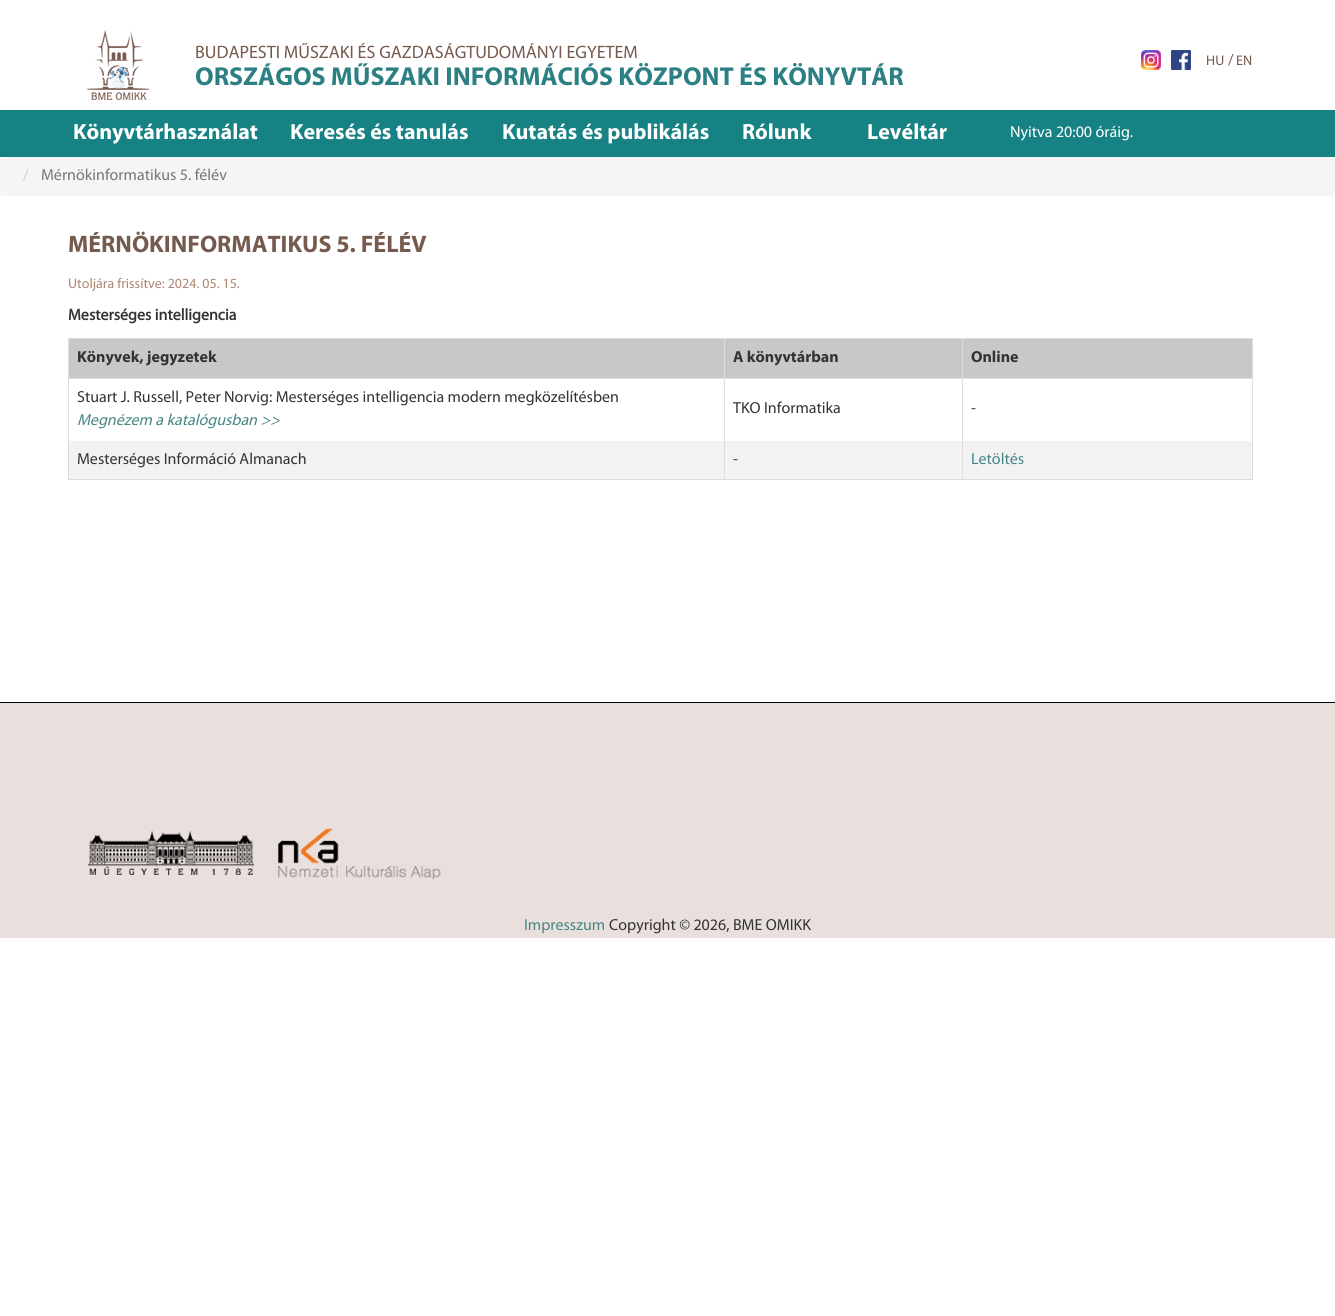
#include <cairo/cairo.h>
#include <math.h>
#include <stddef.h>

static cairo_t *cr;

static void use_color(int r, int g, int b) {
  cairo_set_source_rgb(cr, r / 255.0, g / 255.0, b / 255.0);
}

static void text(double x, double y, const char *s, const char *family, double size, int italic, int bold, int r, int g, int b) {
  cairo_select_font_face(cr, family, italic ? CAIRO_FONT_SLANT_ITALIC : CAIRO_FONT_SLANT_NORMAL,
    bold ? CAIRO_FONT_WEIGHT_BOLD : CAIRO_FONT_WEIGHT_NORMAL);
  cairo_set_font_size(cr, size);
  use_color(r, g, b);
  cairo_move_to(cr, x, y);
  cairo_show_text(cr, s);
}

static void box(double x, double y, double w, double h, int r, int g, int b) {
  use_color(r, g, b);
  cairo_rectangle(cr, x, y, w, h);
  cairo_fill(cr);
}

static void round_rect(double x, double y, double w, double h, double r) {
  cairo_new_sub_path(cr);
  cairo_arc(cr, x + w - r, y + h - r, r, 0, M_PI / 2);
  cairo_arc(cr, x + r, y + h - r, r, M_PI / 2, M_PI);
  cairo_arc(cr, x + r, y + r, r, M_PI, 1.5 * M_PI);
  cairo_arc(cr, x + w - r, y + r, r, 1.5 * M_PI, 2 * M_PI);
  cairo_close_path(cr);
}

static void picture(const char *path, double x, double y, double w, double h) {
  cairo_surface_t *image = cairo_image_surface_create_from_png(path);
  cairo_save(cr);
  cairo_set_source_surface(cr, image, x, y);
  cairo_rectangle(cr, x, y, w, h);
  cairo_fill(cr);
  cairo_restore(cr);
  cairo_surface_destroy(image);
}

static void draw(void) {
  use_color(255, 255, 255);
  cairo_paint(cr);
  picture("img_01.png", 86, 30, 64, 70);
  picture("img_02.png", 1141, 50, 20, 20);
  picture("img_03.png", 1171, 50, 20, 20);
  box(0, 110, 1335, 47, 23, 130, 131);
  use_color(245, 245, 245);
  round_rect(0, 157, 1335, 39, 4);
  cairo_fill(cr);
  box(68, 338, 1185, 1, 221, 221, 221);
  box(1252, 338, 1, 142, 221, 221, 221);
  box(68, 479, 1185, 1, 221, 221, 221);
  box(68, 338, 1, 142, 221, 221, 221);
  box(69, 339, 655, 39, 200, 201, 199);
  box(69, 441, 1183, 38, 242, 242, 242);
  box(962, 378, 1, 102, 221, 221, 221);
  box(962, 378, 291, 1, 221, 221, 221);
  box(962, 338, 1, 41, 221, 221, 221);
  box(724, 378, 1, 102, 221, 221, 221);
  box(724, 378, 239, 1, 221, 221, 221);
  box(724, 338, 1, 41, 221, 221, 221);
  box(68, 378, 657, 1, 221, 221, 221);
  box(725, 339, 237, 39, 200, 201, 199);
  box(963, 339, 289, 39, 200, 201, 199);
  box(0, 703, 1335, 235, 233, 224, 221);
  box(0, 702, 1335, 1, 0, 0, 0);
  picture("img_04.png", 88, 831, 166, 44);
  picture("img_05.png", 278, 828, 163, 52);
  text(195, 58, "BUDAPESTI MŰSZAKI ÉS GAZDASÁGTUDOMÁNYI EGYETEM", "Myriad", 18, 0, 0, 117, 90, 77);
  text(195, 85, "ORSZÁGOS MŰSZAKI INFORMÁCIÓS KÖZPONT ÉS KÖNYVTÁR", "Myriad", 26, 0, 1, 44, 128, 131);
  text(1206, 65, "HU", "Myriad", 14, 0, 0, 117, 90, 77);
  text(1228, 65, "/", "Myriad", 16, 0, 0, 117, 90, 77);
  text(1236, 65, "EN", "Myriad", 14, 0, 0, 117, 90, 77);
  text(1010, 137, "Nyitva 20:00 óráig.", "Myriad", 16, 0, 0, 255, 255, 255);
  text(73, 139, "Könyvtárhasználat", "Myriad", 22, 0, 1, 255, 255, 255);
  text(290, 139, "Keresés és tanulás", "Myriad", 22, 0, 1, 255, 255, 255);
  text(502, 139, "Kutatás és publikálás", "Myriad", 22, 0, 1, 255, 255, 255);
  text(742, 139, "Rólunk", "Myriad", 22, 0, 1, 255, 255, 255);
  text(867, 139, "Levéltár", "Myriad", 22, 0, 1, 255, 255, 255);
  text(23, 180, "/", "Myriad", 16, 0, 0, 204, 204, 204);
  text(41, 180, "Mérnökinformatikus 5. félév", "Myriad", 16, 0, 0, 119, 119, 119);
  text(68, 252, "MÉRNÖKINFORMATIKUS 5. FÉLÉV", "Myriad", 24, 0, 1, 117, 90, 77);
  text(68, 288, "Utoljára frissítve: 2024. 05. 15.", "Myriad", 14, 0, 0, 176, 133, 113);
  text(68, 320, "Mesterséges intelligencia", "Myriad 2", 16, 0, 1, 51, 51, 51);
  text(77, 362, "Könyvek, jegyzetek", "Myriad", 16, 0, 1, 51, 51, 51);
  text(733, 362, "A könyvtárban", "Myriad", 16, 0, 1, 51, 51, 51);
  text(971, 362, "Online", "Myriad", 16, 0, 1, 51, 51, 51);
  text(77, 402, "Stuart J. Russell, Peter Norvig: Mesterséges intelligencia modern megközelítésben", "Myriad", 16, 0, 0, 51, 51, 51);
  text(77, 425, "Megnézem a katalógusban >>", "Myriad", 16, 1, 0, 70, 135, 134);
  text(733, 413, "TKO Informatika", "Myriad", 16, 0, 0, 51, 51, 51);
  text(971, 413, "-", "Myriad", 16, 0, 0, 51, 51, 51);
  text(77, 464, "Mesterséges Információ Almanach", "Myriad", 16, 0, 0, 51, 51, 51);
  text(733, 464, "-", "Myriad", 16, 0, 0, 51, 51, 51);
  text(971, 464, "Letöltés", "Myriad", 16, 0, 0, 70, 135, 134);
  text(524, 930, "Impresszum", "Myriad", 16, 0, 0, 70, 135, 134);
  text(609, 930, "Copyright © 2026, BME OMIKK", "Myriad", 16, 0, 0, 51, 51, 51);
}

int main(void) {
  cairo_surface_t *surface = cairo_image_surface_create(CAIRO_FORMAT_RGB24, 1335, 1316);
  cr = cairo_create(surface);
  cairo_font_options_t *options = cairo_font_options_create();
  cairo_font_options_set_hint_metrics(options, CAIRO_HINT_METRICS_OFF);
  cairo_font_options_set_hint_style(options, CAIRO_HINT_STYLE_NONE);
  cairo_set_font_options(cr, options);
  cairo_set_miter_limit(cr, 4);
  draw();
  cairo_surface_write_to_png(surface, "out.png");
  cairo_font_options_destroy(options);
  cairo_destroy(cr);
  cairo_surface_destroy(surface);
  return 0;
}
